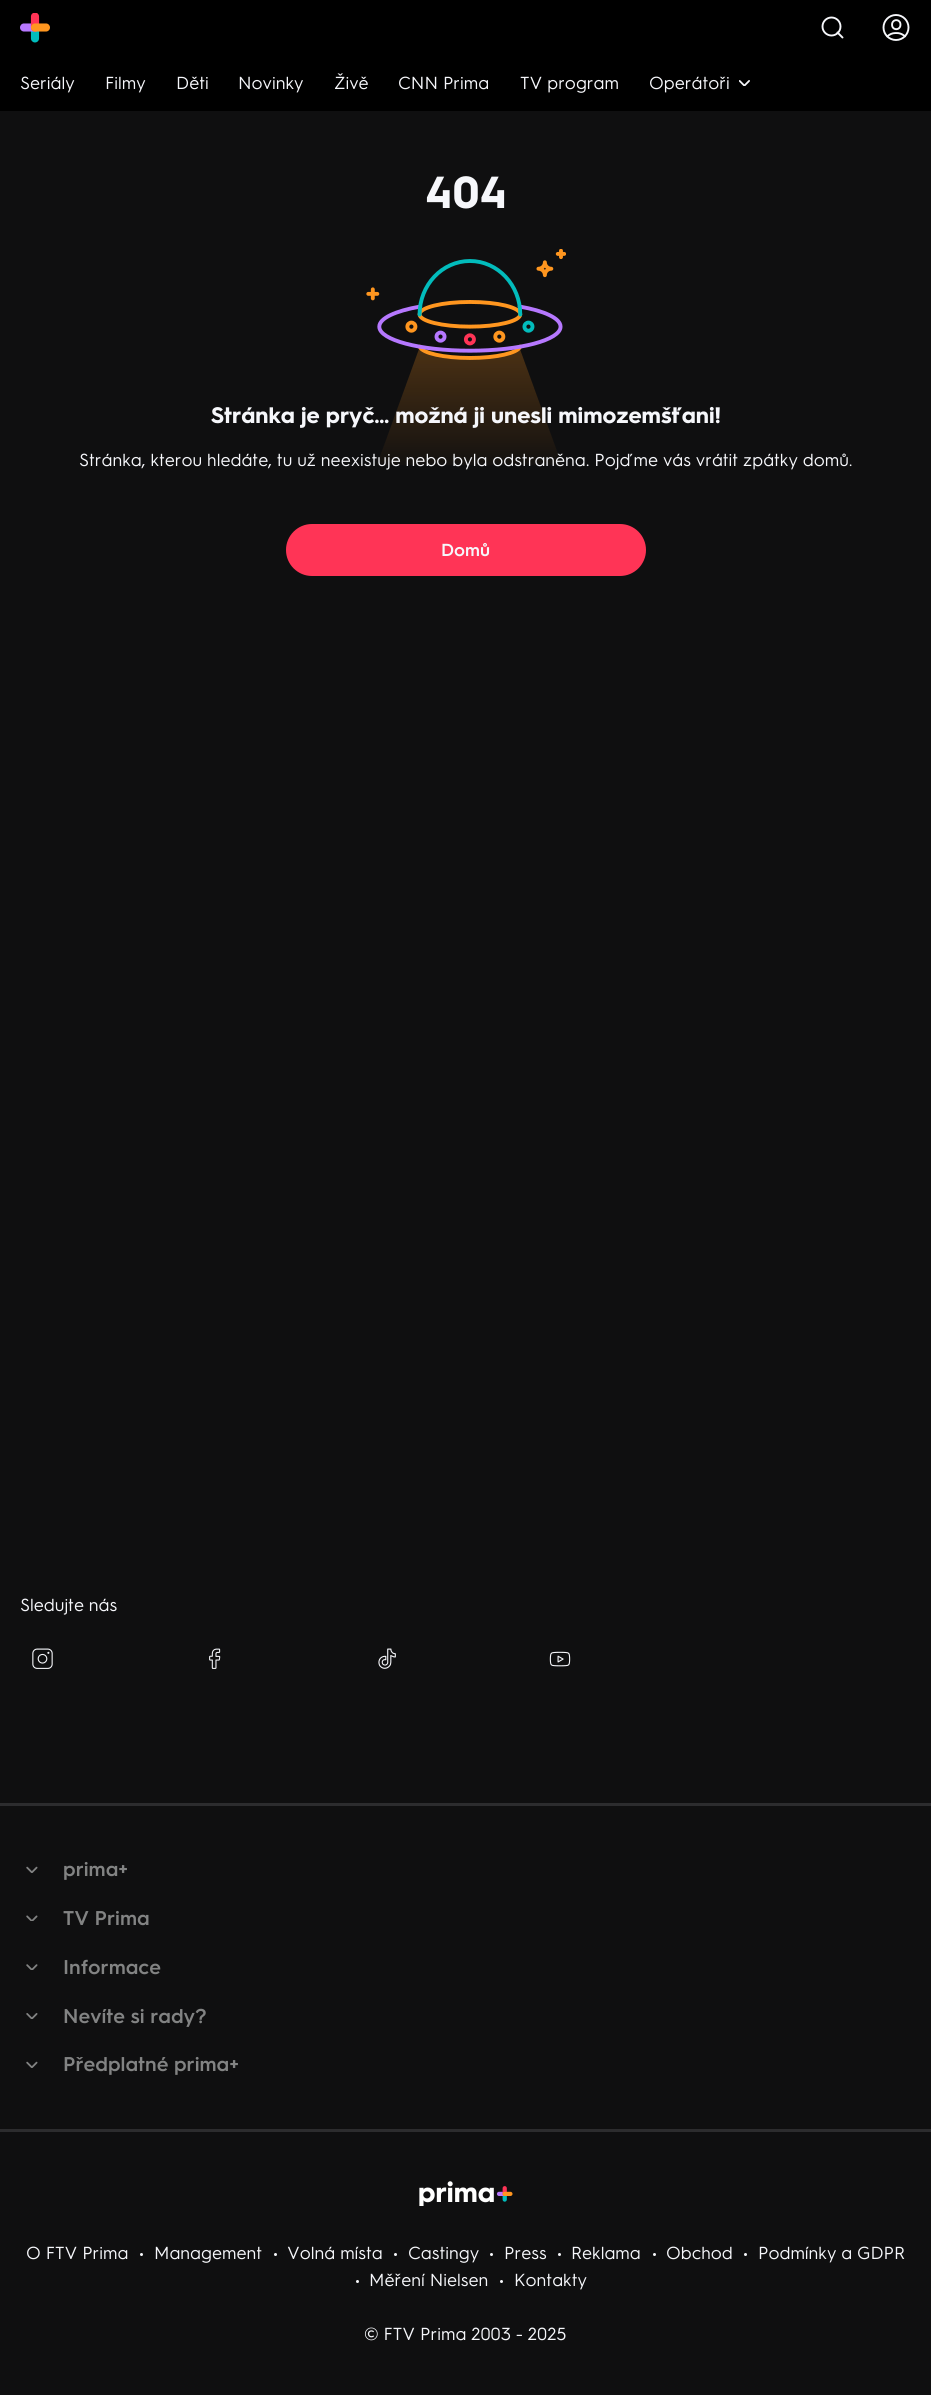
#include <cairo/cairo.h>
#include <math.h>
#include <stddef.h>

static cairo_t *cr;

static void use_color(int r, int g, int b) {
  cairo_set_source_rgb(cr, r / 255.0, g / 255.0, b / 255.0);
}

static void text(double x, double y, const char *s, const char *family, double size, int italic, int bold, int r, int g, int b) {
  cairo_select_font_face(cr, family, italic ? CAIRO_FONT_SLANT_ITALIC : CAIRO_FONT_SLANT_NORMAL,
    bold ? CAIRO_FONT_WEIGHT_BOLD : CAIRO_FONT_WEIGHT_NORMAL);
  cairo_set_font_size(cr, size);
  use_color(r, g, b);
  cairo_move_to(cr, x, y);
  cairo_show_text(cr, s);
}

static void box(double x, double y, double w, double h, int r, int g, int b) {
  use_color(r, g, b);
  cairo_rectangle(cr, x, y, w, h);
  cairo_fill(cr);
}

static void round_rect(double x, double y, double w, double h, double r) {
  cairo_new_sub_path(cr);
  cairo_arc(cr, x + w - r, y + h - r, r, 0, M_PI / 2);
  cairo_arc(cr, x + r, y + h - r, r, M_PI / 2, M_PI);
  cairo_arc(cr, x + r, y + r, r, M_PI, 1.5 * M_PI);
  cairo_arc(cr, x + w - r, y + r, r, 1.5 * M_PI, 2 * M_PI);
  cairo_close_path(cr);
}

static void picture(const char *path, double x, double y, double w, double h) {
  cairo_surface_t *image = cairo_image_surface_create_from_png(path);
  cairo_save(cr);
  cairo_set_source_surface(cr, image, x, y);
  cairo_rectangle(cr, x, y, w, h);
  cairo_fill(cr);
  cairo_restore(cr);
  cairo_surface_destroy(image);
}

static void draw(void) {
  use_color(15, 15, 16);
  cairo_paint(cr);
  box(0, 0, 931, 111, 0, 0, 0);
  picture("img_01.png", 20, 13, 30, 30);
  cairo_arc(cr, 831.5, 26.5, 9, 0, 2 * M_PI);
  use_color(246, 247, 251);
  cairo_set_line_width(cr, 1.9);
  cairo_stroke(cr);
  cairo_new_path(cr);
  cairo_move_to(cr, 842.5, 37.5);
  cairo_line_to(cr, 837.5, 32.5);
  cairo_set_line_cap(cr, CAIRO_LINE_CAP_ROUND);
  cairo_set_line_join(cr, CAIRO_LINE_JOIN_ROUND);
  cairo_stroke(cr);
  picture("img_02.png", 882, 14, 28, 27);
  picture("img_03.png", 739, 80, 11, 6);
  picture("img_04.png", 366, 249, 200, 216);
  use_color(255, 52, 86);
  round_rect(286, 524, 360, 52, 26);
  cairo_fill(cr);
  box(0, 1803, 931, 3, 44, 44, 46);
  picture("img_05.png", 32, 1648, 21, 21);
  picture("img_06.png", 209, 1648, 12, 21);
  picture("img_07.png", 378, 1648, 18, 21);
  picture("img_08.png", 549, 1651, 22, 16);
  picture("img_09.png", 26, 1866, 12, 7);
  picture("img_10.png", 26, 1915, 12, 6);
  picture("img_11.png", 26, 1964, 12, 6);
  picture("img_12.png", 26, 2013, 12, 6);
  picture("img_09.png", 26, 2061, 12, 7);
  box(0, 2129, 931, 3, 44, 44, 46);
  picture("img_13.png", 419, 2181, 94, 25);
  use_color(246, 247, 251);
  cairo_arc(cr, 141.5, 2254.5, 1.5, 0, 2 * M_PI);
  cairo_fill(cr);
  cairo_arc(cr, 275.5, 2254.5, 1.5, 0, 2 * M_PI);
  cairo_fill(cr);
  cairo_arc(cr, 395.5, 2254.5, 1.5, 0, 2 * M_PI);
  cairo_fill(cr);
  cairo_arc(cr, 491.5, 2254.5, 1.5, 0, 2 * M_PI);
  cairo_fill(cr);
  cairo_arc(cr, 559.5, 2254.5, 1.5, 0, 2 * M_PI);
  cairo_fill(cr);
  cairo_arc(cr, 654.5, 2254.5, 1.5, 0, 2 * M_PI);
  cairo_fill(cr);
  cairo_arc(cr, 745.5, 2254.5, 1.5, 0, 2 * M_PI);
  cairo_fill(cr);
  cairo_arc(cr, 357.5, 2281.5, 1.5, 0, 2 * M_PI);
  cairo_fill(cr);
  cairo_arc(cr, 501.5, 2281.5, 1.5, 0, 2 * M_PI);
  cairo_fill(cr);
  text(20, 89, "Seriály", "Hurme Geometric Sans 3", 17.5, 0, 0, 246, 247, 251);
  text(105, 89, "Filmy", "Hurme Geometric Sans 3", 17.5, 0, 0, 246, 247, 251);
  text(176, 89, "Děti", "Hurme Geometric Sans 3", 17.5, 0, 0, 246, 247, 251);
  text(238, 89, "Novinky", "Hurme Geometric Sans 3", 17.5, 0, 0, 246, 247, 251);
  text(334, 89, "Živě", "Hurme Geometric Sans 3", 17.5, 0, 0, 246, 247, 251);
  text(398, 89, "CNN Prima", "Hurme Geometric Sans 3", 17.5, 0, 0, 246, 247, 251);
  text(520, 89, "TV program", "Hurme Geometric Sans 3", 17.5, 0, 0, 246, 247, 251);
  text(649, 89, "Operátoři", "Hurme Geometric Sans 3", 17.5, 0, 0, 246, 247, 251);
  text(425, 208, "404", "Hurme Geometric Sans 3", 45, 0, 1, 246, 247, 251);
  text(211, 423, "Stránka je pryč… možná ji unesli mimozemšťani!", "Hurme Geometric Sans 3", 22.5, 0, 1, 246, 247, 251);
  text(79, 466, "Stránka, kterou hledáte, tu už neexistuje nebo byla odstraněna. Pojďme vás vrátit zpátky domů.", "Hurme Geometric Sans 3", 17.5, 0, 0, 246, 247, 251);
  text(441, 556, "Domů", "Hurme Geometric Sans 3 SemiBold", 17.5, 0, 0, 246, 247, 251);
  text(20, 1611, "Sledujte nás", "Hurme Geometric Sans 3", 17.5, 0, 0, 246, 247, 251);
  text(63, 1876, "prima+", "Hurme Geometric Sans 3 SemiBold", 20, 0, 0, 130, 131, 131);
  text(63, 1925, "TV Prima", "Hurme Geometric Sans 3 SemiBold", 20, 0, 0, 130, 131, 131);
  text(63, 1974, "Informace", "Hurme Geometric Sans 3 SemiBold", 20, 0, 0, 130, 131, 131);
  text(63, 2023, "Nevíte si rady?", "Hurme Geometric Sans 3 SemiBold", 20, 0, 0, 130, 131, 131);
  text(63, 2071, "Předplatné prima+", "Hurme Geometric Sans 3 SemiBold", 20, 0, 0, 130, 131, 131);
  text(26, 2259, "O FTV Prima", "Hurme Geometric Sans 3", 17.5, 0, 0, 246, 247, 251);
  text(154, 2259, "Management", "Hurme Geometric Sans 3", 17.5, 0, 0, 246, 247, 251);
  text(287, 2259, "Volná místa", "Hurme Geometric Sans 3", 17.5, 0, 0, 246, 247, 251);
  text(408, 2259, "Castingy", "Hurme Geometric Sans 3", 17.5, 0, 0, 246, 247, 251);
  text(504, 2259, "Press", "Hurme Geometric Sans 3", 17.5, 0, 0, 246, 247, 251);
  text(571, 2259, "Reklama", "Hurme Geometric Sans 3", 17.5, 0, 0, 246, 247, 251);
  text(666, 2259, "Obchod", "Hurme Geometric Sans 3", 17.5, 0, 0, 246, 247, 251);
  text(758, 2259, "Podmínky a GDPR", "Hurme Geometric Sans 3", 17.5, 0, 0, 246, 247, 251);
  text(369, 2286, "Měření Nielsen", "Hurme Geometric Sans 3", 17.5, 0, 0, 246, 247, 251);
  text(514, 2286, "Kontakty", "Hurme Geometric Sans 3", 17.5, 0, 0, 246, 247, 251);
  text(364, 2340, "© FTV Prima 2003 - 2025", "Hurme Geometric Sans 3", 17.5, 0, 0, 246, 247, 251);
}

int main(void) {
  cairo_surface_t *surface = cairo_image_surface_create(CAIRO_FORMAT_RGB24, 931, 2395);
  cr = cairo_create(surface);
  cairo_font_options_t *options = cairo_font_options_create();
  cairo_font_options_set_hint_metrics(options, CAIRO_HINT_METRICS_OFF);
  cairo_font_options_set_hint_style(options, CAIRO_HINT_STYLE_NONE);
  cairo_set_font_options(cr, options);
  cairo_set_miter_limit(cr, 4);
  draw();
  cairo_surface_write_to_png(surface, "out.png");
  cairo_font_options_destroy(options);
  cairo_destroy(cr);
  cairo_surface_destroy(surface);
  return 0;
}
